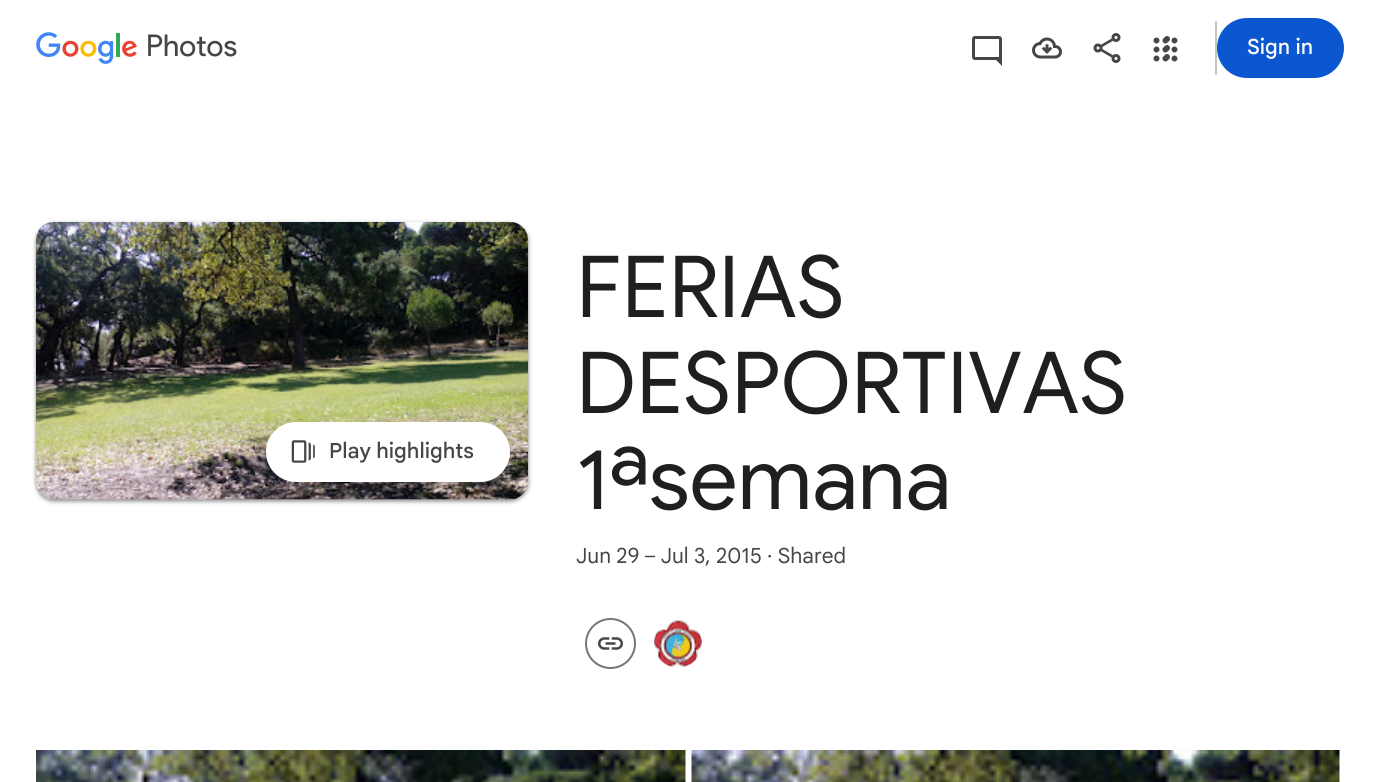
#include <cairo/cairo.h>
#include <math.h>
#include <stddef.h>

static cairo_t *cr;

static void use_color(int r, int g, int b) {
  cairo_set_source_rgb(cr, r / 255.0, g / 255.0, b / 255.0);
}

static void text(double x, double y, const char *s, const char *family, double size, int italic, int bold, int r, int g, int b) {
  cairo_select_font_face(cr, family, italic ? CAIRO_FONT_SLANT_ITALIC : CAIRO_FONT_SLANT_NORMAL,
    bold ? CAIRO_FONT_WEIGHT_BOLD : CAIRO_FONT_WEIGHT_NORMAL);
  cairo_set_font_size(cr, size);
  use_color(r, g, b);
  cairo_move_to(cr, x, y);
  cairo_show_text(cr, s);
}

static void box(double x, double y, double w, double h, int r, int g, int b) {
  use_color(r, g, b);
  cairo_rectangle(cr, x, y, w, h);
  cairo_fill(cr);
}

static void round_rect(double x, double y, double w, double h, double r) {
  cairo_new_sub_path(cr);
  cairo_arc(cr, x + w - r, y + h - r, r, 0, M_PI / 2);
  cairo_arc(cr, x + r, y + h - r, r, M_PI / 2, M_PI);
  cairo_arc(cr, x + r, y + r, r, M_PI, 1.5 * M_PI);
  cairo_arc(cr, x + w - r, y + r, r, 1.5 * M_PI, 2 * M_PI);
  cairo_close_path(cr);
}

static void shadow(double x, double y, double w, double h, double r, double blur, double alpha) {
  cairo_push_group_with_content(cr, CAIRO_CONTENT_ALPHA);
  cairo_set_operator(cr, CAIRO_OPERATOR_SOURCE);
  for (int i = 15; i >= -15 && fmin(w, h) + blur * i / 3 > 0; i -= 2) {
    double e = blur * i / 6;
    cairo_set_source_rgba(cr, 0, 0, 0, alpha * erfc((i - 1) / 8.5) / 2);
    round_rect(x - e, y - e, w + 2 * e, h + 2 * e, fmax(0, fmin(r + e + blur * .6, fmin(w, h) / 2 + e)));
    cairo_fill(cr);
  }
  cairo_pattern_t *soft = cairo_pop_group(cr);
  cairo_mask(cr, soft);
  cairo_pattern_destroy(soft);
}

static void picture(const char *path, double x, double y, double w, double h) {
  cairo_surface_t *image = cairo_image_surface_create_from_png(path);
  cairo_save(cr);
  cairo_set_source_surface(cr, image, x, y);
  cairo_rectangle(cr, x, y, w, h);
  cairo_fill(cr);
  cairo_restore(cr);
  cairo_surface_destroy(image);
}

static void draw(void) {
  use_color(255, 255, 255);
  cairo_paint(cr);
  picture("img_01.png", 36, 32, 101, 32);
  picture("img_02.png", 972, 36, 30, 30);
  picture("img_03.png", 1032, 37, 30, 22);
  picture("img_04.png", 1093, 33, 28, 30);
  picture("img_05.png", 1164, 36, 6, 24);
  box(1215, 21, 2, 54, 196, 199, 197);
  use_color(248, 250, 253);
  round_rect(36, 222, 492, 278, 18);
  cairo_fill(cr);
  use_color(0, 0, 0);
  shadow(35, 222, 495, 281, 20, 2, 0.15);
  shadow(36, 224, 492, 277, 18, 1.5, 0.3);
  picture("img_06.png", 36, 222, 492, 278);
  use_color(255, 255, 255);
  round_rect(266, 422, 244, 60, 30);
  cairo_fill(cr);
  picture("img_07.png", 291, 440, 24, 23);
  cairo_arc(cr, 610.5, 643.5, 24.5, 0, 2 * M_PI);
  use_color(116, 119, 117);
  cairo_stroke(cr);
  picture("img_08.png", 598, 637, 25, 13);
  picture("img_09.png", 654, 619, 48, 49);
  picture("img_10.png", 36, 750, 650, 32);
  picture("img_11.png", 691, 750, 649, 32);
  picture("img_12.png", 1153, 37, 25, 25);
  use_color(11, 87, 208);
  round_rect(1217, 18, 127, 60, 30);
  cairo_fill(cr);
  text(146, 56, "Photos", "Product Sans", 30, 0, 0, 68, 71, 70);
  text(329, 458, "Play highlights", "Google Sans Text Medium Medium", 21, 0, 0, 68, 71, 70);
  text(576, 317, "FERIAS", "Google Sans", 85.5, 0, 0, 31, 31, 31);
  text(576, 413, "DESPORTIVAS", "Google Sans", 85.5, 0, 0, 31, 31, 31);
  text(576, 509, "1ªsemana", "Google Sans", 85.5, 0, 0, 31, 31, 31);
  text(576, 563, "Jun 29 – Jul 3, 2015 · Shared", "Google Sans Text", 21, 0, 0, 68, 71, 70);
  text(1247, 54, "Sign in", "Google Sans Text Medium Medium", 21, 0, 0, 255, 255, 255);
}

int main(void) {
  cairo_surface_t *surface = cairo_image_surface_create(CAIRO_FORMAT_RGB24, 1397, 782);
  cr = cairo_create(surface);
  cairo_font_options_t *options = cairo_font_options_create();
  cairo_font_options_set_hint_metrics(options, CAIRO_HINT_METRICS_OFF);
  cairo_font_options_set_hint_style(options, CAIRO_HINT_STYLE_NONE);
  cairo_set_font_options(cr, options);
  cairo_set_miter_limit(cr, 4);
  draw();
  cairo_surface_write_to_png(surface, "out.png");
  cairo_font_options_destroy(options);
  cairo_destroy(cr);
  cairo_surface_destroy(surface);
  return 0;
}
